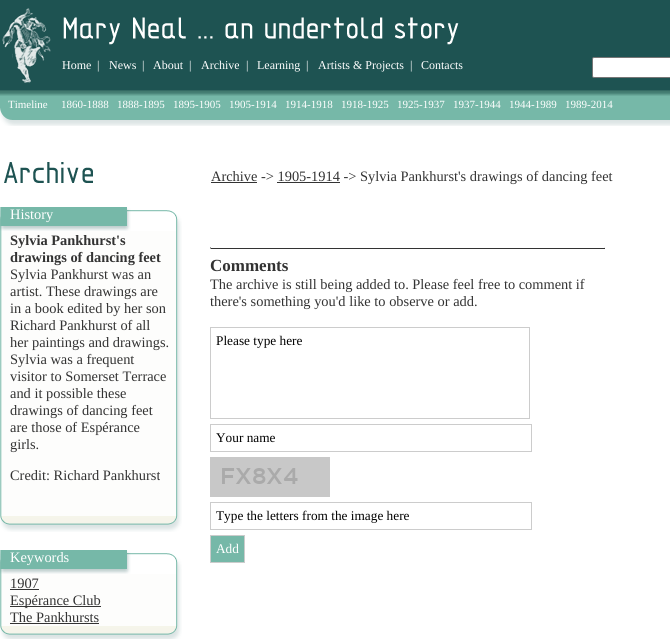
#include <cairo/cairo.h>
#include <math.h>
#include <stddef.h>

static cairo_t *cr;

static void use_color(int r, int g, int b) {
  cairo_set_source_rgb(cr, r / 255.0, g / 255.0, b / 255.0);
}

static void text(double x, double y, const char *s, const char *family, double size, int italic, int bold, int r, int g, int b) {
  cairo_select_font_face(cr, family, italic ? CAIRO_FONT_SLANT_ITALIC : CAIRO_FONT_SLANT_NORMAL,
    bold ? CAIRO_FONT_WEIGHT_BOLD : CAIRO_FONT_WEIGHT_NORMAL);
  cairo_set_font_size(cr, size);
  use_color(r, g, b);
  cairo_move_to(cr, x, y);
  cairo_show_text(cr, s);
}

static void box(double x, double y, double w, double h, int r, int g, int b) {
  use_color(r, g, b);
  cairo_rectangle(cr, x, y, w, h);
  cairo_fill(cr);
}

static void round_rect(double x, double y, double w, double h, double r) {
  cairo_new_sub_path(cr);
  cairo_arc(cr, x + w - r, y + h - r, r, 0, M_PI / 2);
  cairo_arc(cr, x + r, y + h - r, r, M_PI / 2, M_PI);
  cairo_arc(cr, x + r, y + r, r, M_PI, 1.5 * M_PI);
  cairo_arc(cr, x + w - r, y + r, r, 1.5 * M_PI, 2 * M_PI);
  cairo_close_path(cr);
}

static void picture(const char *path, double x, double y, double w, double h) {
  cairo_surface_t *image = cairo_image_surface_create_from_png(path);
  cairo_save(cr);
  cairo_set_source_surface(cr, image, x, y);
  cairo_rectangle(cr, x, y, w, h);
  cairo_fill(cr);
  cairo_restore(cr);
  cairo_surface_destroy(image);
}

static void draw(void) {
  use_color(255, 255, 255);
  cairo_paint(cr);
  picture("img_01.png", 0, 0, 670, 90);
  picture("img_02.png", 2, 8, 49, 75);
  picture("img_03.png", 63, 17, 396, 28);
  use_color(255, 255, 255);
  round_rect(592.5, 57.5, 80, 20, 1.5);
  cairo_fill_preserve(cr);
  use_color(118, 118, 118);
  cairo_set_line_width(cr, 1);
  cairo_stroke(cr);
  box(0, 96, 670, 12, 118, 184, 168);
  picture("img_04.png", 0, 90, 670, 6);
  picture("img_06.png", 4, 162, 89, 21);
  box(211, 182, 46, 1, 51, 51, 51);
  box(277, 182, 63, 1, 51, 51, 51);
  picture("img_07.png", 0, 231, 182, 285);
  picture("img_08.png", 0, 207, 182, 24);
  picture("img_09.png", 0, 516, 182, 16);
  picture("img_10.png", 0, 574, 182, 52);
  picture("img_08.png", 0, 550, 182, 24);
  box(10, 589, 29, 1, 51, 51, 51);
  box(10, 606, 91, 1, 51, 51, 51);
  box(10, 623, 89, 1, 51, 51, 51);
  picture("img_11.png", 0, 626, 182, 13);
  box(604, 247, 1, 2, 238, 238, 238);
  box(210, 248, 395, 1, 51, 51, 51);
  box(210, 247, 1, 2, 159, 159, 159);
  cairo_rectangle(cr, 210.5, 327.5, 319, 91);
  use_color(204, 204, 204);
  cairo_stroke(cr);
  cairo_rectangle(cr, 210.5, 424.5, 321, 27);
  cairo_stroke(cr);
  picture("img_12.png", 210, 457, 120, 40);
  cairo_rectangle(cr, 210.5, 502.5, 321, 27);
  cairo_stroke(cr);
  use_color(118, 184, 168);
  cairo_rectangle(cr, 210.5, 535.5, 34, 27);
  cairo_fill_preserve(cr);
  use_color(204, 204, 204);
  cairo_stroke(cr);
  text(62, 69, "Home", "Liberation Serif", 12, 0, 0, 255, 255, 255);
  text(97, 69, "|", "Liberation Serif", 12, 0, 0, 255, 255, 255);
  text(109, 69, "News", "Liberation Serif", 12, 0, 0, 255, 255, 255);
  text(142, 69, "|", "Liberation Serif", 12, 0, 0, 255, 255, 255);
  text(153, 69, "About", "Liberation Serif", 12, 0, 0, 255, 255, 255);
  text(189, 69, "|", "Liberation Serif", 12, 0, 0, 255, 255, 255);
  text(201, 69, "Archive", "Liberation Serif", 12, 0, 0, 255, 255, 255);
  text(246, 69, "|", "Liberation Serif", 12, 0, 0, 255, 255, 255);
  text(257, 69, "Learning", "Liberation Serif", 12, 0, 0, 255, 255, 255);
  text(306, 69, "|", "Liberation Serif", 12, 0, 0, 255, 255, 255);
  text(318, 69, "Artists & Projects", "Liberation Serif", 12, 0, 0, 255, 255, 255);
  text(410, 69, "|", "Liberation Serif", 12, 0, 0, 255, 255, 255);
  text(421, 69, "Contacts", "Liberation Serif", 12, 0, 0, 255, 255, 255);
  text(8, 108, "Timeline", "Liberation Serif", 11, 0, 0, 255, 255, 255);
  text(61, 108, "1860-1888", "Liberation Serif", 11, 0, 0, 255, 255, 255);
  text(117, 108, "1888-1895", "Liberation Serif", 11, 0, 0, 255, 255, 255);
  text(173, 108, "1895-1905", "Liberation Serif", 11, 0, 0, 255, 255, 255);
  text(229, 108, "1905-1914", "Liberation Serif", 11, 0, 0, 255, 255, 255);
  text(285, 108, "1914-1918", "Liberation Serif", 11, 0, 0, 255, 255, 255);
  text(341, 108, "1918-1925", "Liberation Serif", 11, 0, 0, 255, 255, 255);
  text(397, 108, "1925-1937", "Liberation Serif", 11, 0, 0, 255, 255, 255);
  text(453, 108, "1937-1944", "Liberation Serif", 11, 0, 0, 255, 255, 255);
  text(509, 108, "1944-1989", "Liberation Serif", 11, 0, 0, 255, 255, 255);
  text(565, 108, "1989-2014", "Liberation Serif", 11, 0, 0, 255, 255, 255);
  picture("img_05.png", 0, 108, 670, 18);
  text(211, 181, "Archive -> 1905-1914 -> Sylvia Pankhurst's drawings of dancing feet", "Liberation Serif", 14.4, 0, 0, 51, 51, 51);
  text(10, 219, "History", "Liberation Serif", 14.4, 0, 0, 255, 255, 255);
  text(10, 245, "Sylvia Pankhurst's", "Liberation Serif", 14.4, 0, 1, 51, 51, 51);
  text(10, 262, "drawings of dancing feet", "Liberation Serif", 14.4, 0, 1, 51, 51, 51);
  text(10, 279, "Sylvia Pankhurst was an", "Liberation Serif", 14.4, 0, 0, 51, 51, 51);
  text(10, 296, "artist. These drawings are", "Liberation Serif", 14.4, 0, 0, 51, 51, 51);
  text(10, 313, "in a book edited by her son", "Liberation Serif", 14.4, 0, 0, 51, 51, 51);
  text(10, 330, "Richard Pankhurst of all", "Liberation Serif", 14.4, 0, 0, 51, 51, 51);
  text(10, 347, "her paintings and drawings.", "Liberation Serif", 14.4, 0, 0, 51, 51, 51);
  text(10, 364, "Sylvia was a frequent", "Liberation Serif", 14.4, 0, 0, 51, 51, 51);
  text(10, 381, "visitor to Somerset Terrace", "Liberation Serif", 14.4, 0, 0, 51, 51, 51);
  text(10, 398, "and it possible these", "Liberation Serif", 14.4, 0, 0, 51, 51, 51);
  text(10, 415, "drawings of dancing feet", "Liberation Serif", 14.4, 0, 0, 51, 51, 51);
  text(10, 432, "are those of Espérance", "Liberation Serif", 14.4, 0, 0, 51, 51, 51);
  text(10, 449, "girls.", "Liberation Serif", 14.4, 0, 0, 51, 51, 51);
  text(10, 480, "Credit: Richard Pankhurst", "Liberation Serif", 14.4, 0, 0, 51, 51, 51);
  text(10, 562, "Keywords", "Liberation Serif", 14.4, 0, 0, 255, 255, 255);
  text(10, 588, "1907", "Liberation Serif", 14.4, 0, 0, 51, 51, 51);
  text(10, 605, "Espérance Club", "Liberation Serif", 14.4, 0, 0, 51, 51, 51);
  text(10, 622, "The Pankhursts", "Liberation Serif", 14.4, 0, 0, 51, 51, 51);
  text(210, 271, "Comments", "Liberation Serif", 17, 0, 1, 51, 51, 51);
  text(210, 289, "The archive is still being added to. Please feel free to comment if", "Liberation Serif", 14.4, 0, 0, 51, 51, 51);
  text(210, 306, "there's something you'd like to observe or add.", "Liberation Serif", 14.4, 0, 0, 51, 51, 51);
  text(216, 345, "Please type here", "Liberation Serif", 13.3, 0, 0, 0, 0, 0);
  text(216, 442, "Your name", "Liberation Serif", 13.3, 0, 0, 0, 0, 0);
  text(216, 520, "Type the letters from the image here", "Liberation Serif", 13.3, 0, 0, 0, 0, 0);
  text(216, 553, "Add", "Liberation Serif", 13.3, 0, 0, 255, 255, 255);
}

int main(void) {
  cairo_surface_t *surface = cairo_image_surface_create(CAIRO_FORMAT_RGB24, 670, 639);
  cr = cairo_create(surface);
  cairo_font_options_t *options = cairo_font_options_create();
  cairo_font_options_set_hint_metrics(options, CAIRO_HINT_METRICS_OFF);
  cairo_font_options_set_hint_style(options, CAIRO_HINT_STYLE_NONE);
  cairo_set_font_options(cr, options);
  cairo_set_miter_limit(cr, 4);
  draw();
  cairo_surface_write_to_png(surface, "out.png");
  cairo_font_options_destroy(options);
  cairo_destroy(cr);
  cairo_surface_destroy(surface);
  return 0;
}
